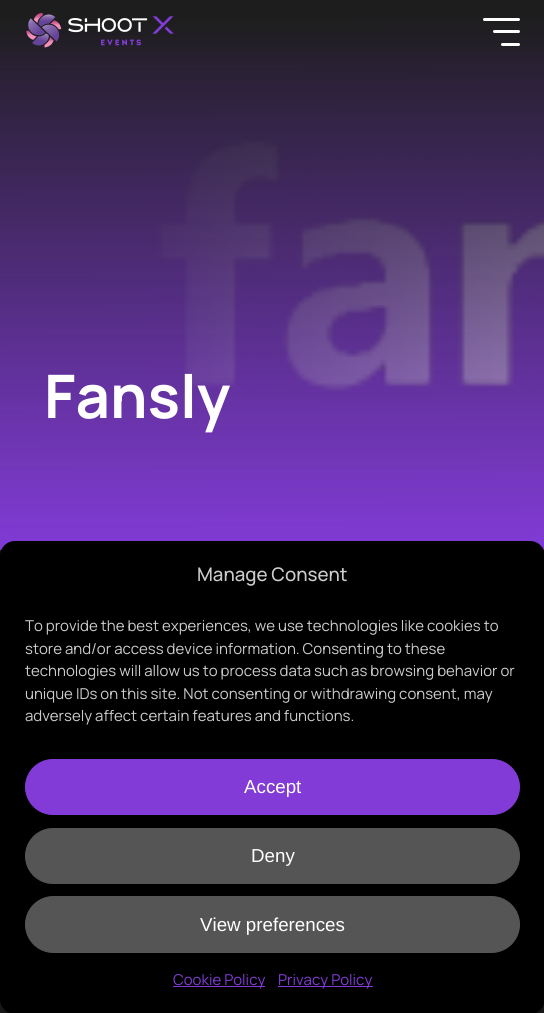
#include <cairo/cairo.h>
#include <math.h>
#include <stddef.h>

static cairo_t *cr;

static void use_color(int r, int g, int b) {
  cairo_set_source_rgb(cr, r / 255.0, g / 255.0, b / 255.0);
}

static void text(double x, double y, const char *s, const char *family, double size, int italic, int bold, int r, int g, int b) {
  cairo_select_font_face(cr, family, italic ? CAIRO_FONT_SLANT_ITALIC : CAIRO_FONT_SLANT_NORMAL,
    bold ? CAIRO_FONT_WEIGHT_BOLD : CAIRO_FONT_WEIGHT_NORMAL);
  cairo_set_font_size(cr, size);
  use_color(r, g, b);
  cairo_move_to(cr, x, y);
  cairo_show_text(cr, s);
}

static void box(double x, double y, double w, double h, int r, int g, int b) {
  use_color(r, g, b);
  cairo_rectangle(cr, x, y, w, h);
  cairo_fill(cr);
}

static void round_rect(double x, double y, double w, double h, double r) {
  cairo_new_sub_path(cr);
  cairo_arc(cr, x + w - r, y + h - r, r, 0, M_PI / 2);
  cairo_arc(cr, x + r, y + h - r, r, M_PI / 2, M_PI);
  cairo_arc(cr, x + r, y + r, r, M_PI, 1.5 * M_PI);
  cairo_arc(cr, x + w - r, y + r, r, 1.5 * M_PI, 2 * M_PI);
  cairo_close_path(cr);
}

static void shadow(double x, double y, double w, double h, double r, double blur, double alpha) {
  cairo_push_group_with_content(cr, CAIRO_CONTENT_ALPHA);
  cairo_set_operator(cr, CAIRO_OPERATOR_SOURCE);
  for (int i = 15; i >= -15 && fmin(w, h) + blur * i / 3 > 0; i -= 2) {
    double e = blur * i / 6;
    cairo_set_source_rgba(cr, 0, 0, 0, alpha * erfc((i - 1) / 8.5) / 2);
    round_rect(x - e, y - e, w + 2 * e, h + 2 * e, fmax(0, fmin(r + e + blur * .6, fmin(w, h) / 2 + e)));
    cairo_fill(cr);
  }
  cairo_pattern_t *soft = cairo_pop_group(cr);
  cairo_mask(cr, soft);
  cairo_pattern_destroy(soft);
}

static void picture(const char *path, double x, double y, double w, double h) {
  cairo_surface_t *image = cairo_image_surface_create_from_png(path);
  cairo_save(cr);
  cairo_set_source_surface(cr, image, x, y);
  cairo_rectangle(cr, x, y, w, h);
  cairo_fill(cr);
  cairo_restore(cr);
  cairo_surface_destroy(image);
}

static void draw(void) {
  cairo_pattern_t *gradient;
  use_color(29, 29, 29);
  cairo_paint(cr);
  box(0, 7, 544, 543, 130, 59, 215);
  picture("img_02.png", 155, 135, 389, 257);
  gradient = cairo_pattern_create_linear(109, 275, 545, 275);
  cairo_pattern_add_color_stop_rgba(gradient, 0, 0.51, 0.231, 0.843, 1);
  cairo_pattern_add_color_stop_rgba(gradient, 1, 0.51, 0.231, 0.843, 0.5);
  cairo_set_source(cr, gradient);
  cairo_pattern_destroy(gradient);
  cairo_rectangle(cr, 155, 135, 389, 257);
  cairo_fill(cr);
  gradient = cairo_pattern_create_linear(272, 0, 273, 550);
  cairo_pattern_add_color_stop_rgba(gradient, 0, 0.114, 0.114, 0.114, 1);
  cairo_pattern_add_color_stop_rgba(gradient, 1, 0.114, 0.114, 0.114, 0);
  cairo_set_source(cr, gradient);
  cairo_pattern_destroy(gradient);
  cairo_rectangle(cr, 0, 7, 544, 532);
  cairo_fill(cr);
  gradient = cairo_pattern_create_linear(273, 63, 273, 0);
  cairo_pattern_add_color_stop_rgba(gradient, 0, 0.114, 0.114, 0.114, 0);
  cairo_pattern_add_color_stop_rgba(gradient, 0.9, 0.114, 0.114, 0.114, 1);
  cairo_set_source(cr, gradient);
  cairo_pattern_destroy(gradient);
  cairo_rectangle(cr, 0, 7, 544, 48);
  cairo_fill(cr);
  picture("img_01.png", 26, 13, 148, 35);
  use_color(255, 255, 255);
  round_rect(493, 30, 27, 3, 1.5);
  cairo_fill(cr);
  round_rect(483, 18, 37, 3, 1.5);
  cairo_fill(cr);
  round_rect(501, 43, 19, 3, 1.5);
  cairo_fill(cr);
  use_color(0, 0, 0);
  shadow(0, 549, 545, 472, 15, 4, 0.23);
  shadow(0, 554, 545, 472, 15, 12.5, 0.19);
  use_color(0, 0, 0);
  round_rect(0, 541, 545, 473, 15);
  cairo_fill(cr);
  use_color(130, 59, 215);
  round_rect(25.5, 759.5, 494, 55, 27.5);
  cairo_fill_preserve(cr);
  cairo_set_line_width(cr, 1);
  cairo_stroke(cr);
  use_color(85, 85, 85);
  round_rect(25.5, 828.5, 494, 55, 27.5);
  cairo_fill_preserve(cr);
  cairo_stroke(cr);
  round_rect(25.5, 896.5, 494, 56, 28);
  cairo_fill_preserve(cr);
  cairo_stroke(cr);
  box(173, 986, 92, 1, 130, 59, 215);
  box(278, 986, 95, 1, 130, 59, 215);
  text(44, 418, "Fansly", "Manrope ExtraLight", 60, 0, 0, 255, 255, 255);
  text(197, 581, "Manage Consent", "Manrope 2 ExtraLight", 18.75, 0, 0, 204, 204, 204);
  text(25, 631, "To provide the best experiences, we use technologies like cookies to", "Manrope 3 ExtraLight", 15, 0, 0, 204, 204, 204);
  text(25, 654, "store and/or access device information. Consenting to these", "Manrope 3 ExtraLight", 15, 0, 0, 204, 204, 204);
  text(25, 676, "technologies will allow us to process data such as browsing behavior or", "Manrope 3 ExtraLight", 15, 0, 0, 204, 204, 204);
  text(25, 699, "unique IDs on this site. Not consenting or withdrawing consent, may", "Manrope 3 ExtraLight", 15, 0, 0, 204, 204, 204);
  text(25, 721, "adversely affect certain features and functions.", "Manrope 3 ExtraLight", 15, 0, 0, 204, 204, 204);
  text(244, 793, "Accept", "Liberation Sans", 18.75, 0, 0, 255, 255, 255);
  text(251, 862, "Deny", "Liberation Sans", 18.75, 0, 0, 255, 255, 255);
  text(200, 931, "View preferences", "Liberation Sans", 18.75, 0, 0, 255, 255, 255);
  text(173, 985, "Cookie Policy", "Manrope 3 ExtraLight", 15, 0, 0, 130, 59, 215);
  text(278, 985, "Privacy Policy", "Manrope 3 ExtraLight", 15, 0, 0, 130, 59, 215);
}

int main(void) {
  cairo_surface_t *surface = cairo_image_surface_create(CAIRO_FORMAT_RGB24, 544, 1013);
  cr = cairo_create(surface);
  cairo_font_options_t *options = cairo_font_options_create();
  cairo_font_options_set_hint_metrics(options, CAIRO_HINT_METRICS_OFF);
  cairo_font_options_set_hint_style(options, CAIRO_HINT_STYLE_NONE);
  cairo_set_font_options(cr, options);
  cairo_set_miter_limit(cr, 4);
  draw();
  cairo_surface_write_to_png(surface, "out.png");
  cairo_font_options_destroy(options);
  cairo_destroy(cr);
  cairo_surface_destroy(surface);
  return 0;
}
